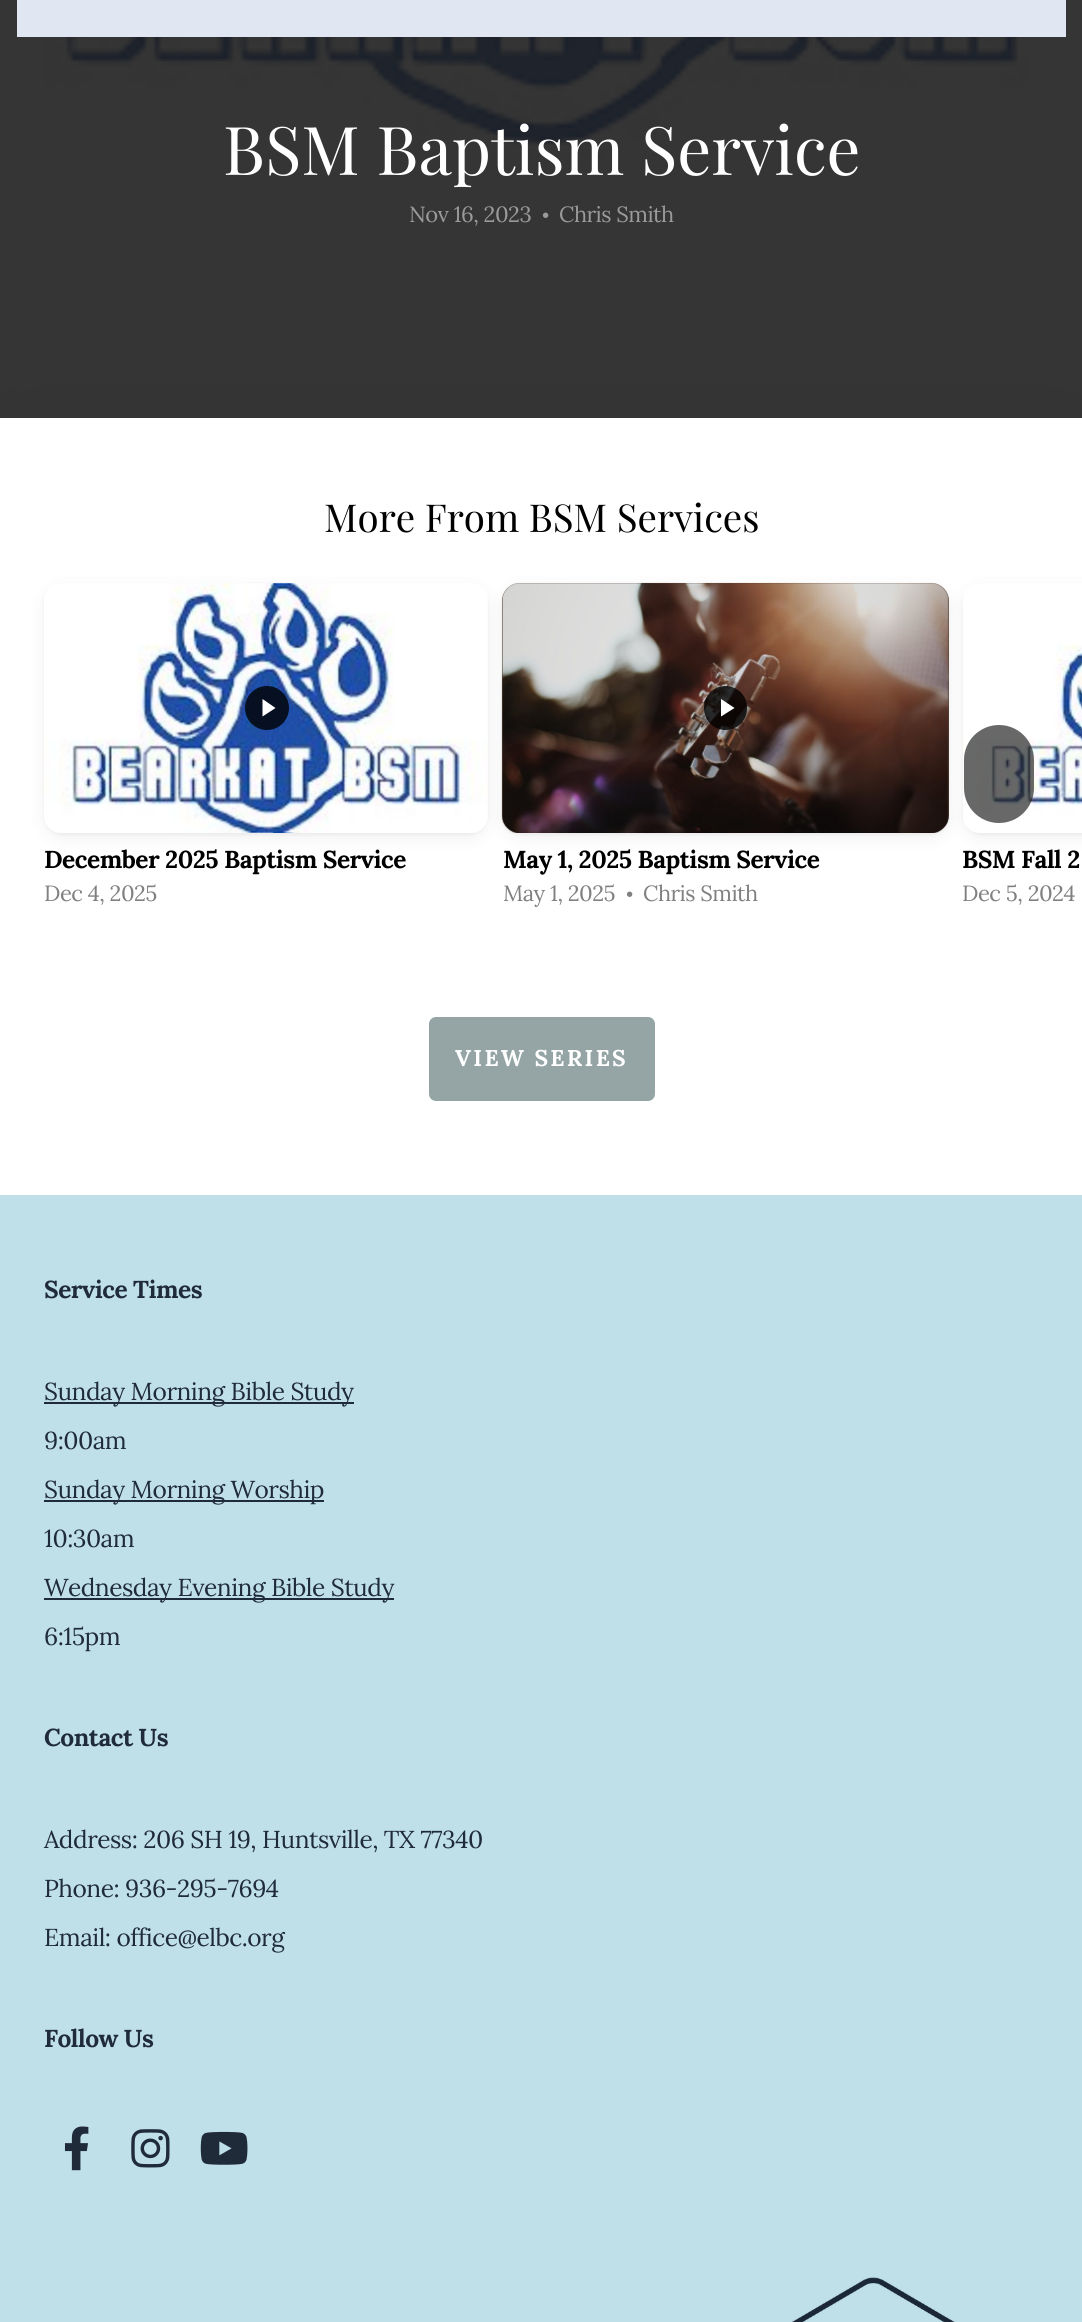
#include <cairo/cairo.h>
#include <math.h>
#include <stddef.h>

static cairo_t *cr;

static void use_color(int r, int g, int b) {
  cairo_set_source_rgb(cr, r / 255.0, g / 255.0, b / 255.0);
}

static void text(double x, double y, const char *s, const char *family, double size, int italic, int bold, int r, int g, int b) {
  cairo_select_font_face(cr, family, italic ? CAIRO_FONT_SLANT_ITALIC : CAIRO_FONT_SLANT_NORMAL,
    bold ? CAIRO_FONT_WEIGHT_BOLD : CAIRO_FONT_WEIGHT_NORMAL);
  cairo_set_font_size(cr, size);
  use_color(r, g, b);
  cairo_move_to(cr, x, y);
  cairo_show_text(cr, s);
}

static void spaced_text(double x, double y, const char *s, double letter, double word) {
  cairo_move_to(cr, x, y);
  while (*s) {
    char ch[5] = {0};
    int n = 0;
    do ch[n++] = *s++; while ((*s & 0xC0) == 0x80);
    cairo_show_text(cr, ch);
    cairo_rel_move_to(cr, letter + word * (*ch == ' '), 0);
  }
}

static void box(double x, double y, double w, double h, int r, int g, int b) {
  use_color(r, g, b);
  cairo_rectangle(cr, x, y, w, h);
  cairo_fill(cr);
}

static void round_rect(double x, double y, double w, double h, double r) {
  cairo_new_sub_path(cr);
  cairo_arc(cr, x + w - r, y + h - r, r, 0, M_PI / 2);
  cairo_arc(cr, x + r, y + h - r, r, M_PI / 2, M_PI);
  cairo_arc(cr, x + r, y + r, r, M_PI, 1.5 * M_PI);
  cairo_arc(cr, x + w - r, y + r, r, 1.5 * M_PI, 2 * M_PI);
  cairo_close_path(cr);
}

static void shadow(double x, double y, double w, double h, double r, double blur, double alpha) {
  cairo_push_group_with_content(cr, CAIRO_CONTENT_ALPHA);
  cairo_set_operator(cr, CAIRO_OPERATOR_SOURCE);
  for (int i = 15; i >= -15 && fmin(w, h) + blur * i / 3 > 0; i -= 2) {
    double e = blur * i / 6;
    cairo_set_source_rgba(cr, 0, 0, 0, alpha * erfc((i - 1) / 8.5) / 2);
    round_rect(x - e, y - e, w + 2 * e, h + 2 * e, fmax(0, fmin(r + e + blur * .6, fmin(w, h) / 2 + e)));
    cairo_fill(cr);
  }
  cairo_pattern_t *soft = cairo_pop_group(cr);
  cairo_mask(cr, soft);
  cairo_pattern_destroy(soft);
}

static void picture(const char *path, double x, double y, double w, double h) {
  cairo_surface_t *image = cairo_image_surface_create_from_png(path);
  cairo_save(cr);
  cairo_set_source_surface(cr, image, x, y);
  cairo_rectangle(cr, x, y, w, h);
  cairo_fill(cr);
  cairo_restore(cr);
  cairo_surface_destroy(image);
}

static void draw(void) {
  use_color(255, 255, 255);
  cairo_paint(cr);
  picture("img_01.png", 0, 0, 1082, 418);
  box(17, 0, 1049, 37, 224, 230, 242);
  use_color(0, 0, 0);
  shadow(44, 585, 444, 250, 18, 2, 0.04);
  shadow(44, 588, 444, 250, 18, 9, 0.06);
  picture("img_02.png", 44, 582, 444, 251);
  shadow(502, 588, 447, 250, 18, 9, 0.06);
  shadow(963, 585, 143, 250, 18, 2, 0.04);
  shadow(502, 585, 447, 250, 18, 2, 0.04);
  use_color(88, 69, 57);
  round_rect(502, 583, 447, 250, 18);
  cairo_fill(cr);
  picture("img_03.png", 501, 582, 448, 251);
  use_color(0, 0, 0);
  shadow(963, 588, 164, 250, 18, 9, 0.06);
  picture("img_04.png", 963, 583, 119, 250);
  cairo_set_source_rgba(cr, 0.157, 0.157, 0.157, 0.7);
  round_rect(964, 725, 70, 98, 35);
  cairo_fill(cr);
  cairo_set_source_rgba(cr, 0, 0, 0, 0.8);
  cairo_arc(cr, 267, 708, 22, 0, 2 * M_PI);
  cairo_fill(cr);
  use_color(255, 255, 255);
  cairo_new_path(cr);
  cairo_move_to(cr, 262.5, 716.5);
  cairo_line_to(cr, 262.5, 699);
  cairo_line_to(cr, 275.5, 708);
  cairo_close_path(cr);
  cairo_fill(cr);
  cairo_set_source_rgba(cr, 0, 0, 0, 0.8);
  round_rect(704, 686, 43, 44, 21.5);
  cairo_fill(cr);
  use_color(255, 255, 255);
  cairo_new_path(cr);
  cairo_move_to(cr, 721, 716.5);
  cairo_line_to(cr, 721, 699);
  cairo_line_to(cr, 734.5, 708);
  cairo_close_path(cr);
  cairo_fill(cr);
  use_color(149, 165, 166);
  round_rect(429, 1017, 226, 84, 7);
  cairo_fill(cr);
  box(0, 1195, 1082, 1127, 191, 224, 233);
  box(44, 1402, 310, 2, 32, 43, 57);
  box(44, 1500, 280, 2, 32, 43, 57);
  box(44, 1598, 350, 2, 32, 43, 57);
  picture("img_05.png", 64, 2126, 25, 45);
  picture("img_06.png", 131, 2129, 39, 39);
  picture("img_07.png", 200, 2131, 48, 34);
  picture("img_08.png", 792, 2277, 163, 45);
  text(223, 175, "BSM Baptism Service", "Playfair Display", 67.25, 0, 0, 255, 255, 255);
  cairo_select_font_face(cr, "Lora", CAIRO_FONT_SLANT_NORMAL, CAIRO_FONT_WEIGHT_NORMAL);
  cairo_set_font_size(cr, 22);
  use_color(154, 154, 154);
  spaced_text(409, 222, "Nov 16, 2023", -0.5, 0);
  cairo_set_font_size(cr, 18);
  spaced_text(542, 222, "•", -0.5, 0);
  cairo_set_font_size(cr, 22);
  spaced_text(559, 222, "Chris Smith", -0.5, 0);
  text(324, 532, "More From BSM Services", "Playfair Display", 38.5, 0, 0, 0, 0, 0);
  cairo_select_font_face(cr, "Lora", CAIRO_FONT_SLANT_NORMAL, CAIRO_FONT_WEIGHT_BOLD);
  cairo_set_font_size(cr, 24.5);
  spaced_text(44, 868, "December 2025 Baptism Service", -0.5, 0);
  cairo_select_font_face(cr, "Lora", CAIRO_FONT_SLANT_NORMAL, CAIRO_FONT_WEIGHT_NORMAL);
  cairo_set_font_size(cr, 22);
  use_color(128, 128, 128);
  spaced_text(44, 901, "Dec 4, 2025", -0.5, 0);
  cairo_select_font_face(cr, "Lora", CAIRO_FONT_SLANT_NORMAL, CAIRO_FONT_WEIGHT_BOLD);
  cairo_set_font_size(cr, 24.5);
  use_color(0, 0, 0);
  spaced_text(503, 868, "May 1, 2025 Baptism Service", -0.5, 0);
  cairo_select_font_face(cr, "Lora", CAIRO_FONT_SLANT_NORMAL, CAIRO_FONT_WEIGHT_NORMAL);
  cairo_set_font_size(cr, 22);
  use_color(128, 128, 128);
  spaced_text(503, 901, "May 1, 2025", -0.5, 0);
  cairo_set_font_size(cr, 18);
  spaced_text(626, 901, "•", -0.5, 0);
  cairo_set_font_size(cr, 22);
  spaced_text(643, 901, "Chris Smith", -0.5, 0);
  cairo_save(cr);
  cairo_rectangle(cr, 963, 842, 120, 37);
  cairo_clip(cr);
  cairo_select_font_face(cr, "Lora", CAIRO_FONT_SLANT_NORMAL, CAIRO_FONT_WEIGHT_BOLD);
  cairo_set_font_size(cr, 24.5);
  use_color(0, 0, 0);
  spaced_text(962, 868, "BSM Fall 2", -0.5, 0);
  cairo_restore(cr);
  spaced_text(962, 901, "Dec 5, 2024", -0.5, 0);
  cairo_select_font_face(cr, "Lora", CAIRO_FONT_SLANT_NORMAL, CAIRO_FONT_WEIGHT_BOLD);
  cairo_set_font_size(cr, 22.75);
  use_color(255, 255, 255);
  spaced_text(455, 1066, "VIEW SERIES", 2.25, 0);
  cairo_set_font_size(cr, 24.5);
  use_color(32, 43, 57);
  spaced_text(44, 1298, "Service Times", -0.5, 0);
  cairo_select_font_face(cr, "Lora", CAIRO_FONT_SLANT_NORMAL, CAIRO_FONT_WEIGHT_NORMAL);
  spaced_text(44, 1400, "Sunday Morning Bible Study", -0.5, 0);
  spaced_text(44, 1449, "9:00am", -0.5, 0);
  spaced_text(44, 1498, "Sunday Morning Worship", -0.5, 0);
  spaced_text(44, 1547, "10:30am", -0.5, 0);
  spaced_text(44, 1596, "Wednesday Evening Bible Study", -0.5, 0);
  spaced_text(44, 1645, "6:15pm", -0.5, 0);
  cairo_select_font_face(cr, "Lora", CAIRO_FONT_SLANT_NORMAL, CAIRO_FONT_WEIGHT_BOLD);
  spaced_text(44, 1746, "Contact Us", -0.5, 0);
  cairo_select_font_face(cr, "Lora", CAIRO_FONT_SLANT_NORMAL, CAIRO_FONT_WEIGHT_NORMAL);
  spaced_text(44, 1848, "Address: 206 SH 19, Huntsville, TX 77340", -0.5, 0);
  spaced_text(44, 1897, "Phone: 936-295-7694", -0.5, 0);
  spaced_text(44, 1946, "Email: office@elbc.org", -0.5, 0);
  cairo_select_font_face(cr, "Lora", CAIRO_FONT_SLANT_NORMAL, CAIRO_FONT_WEIGHT_BOLD);
  spaced_text(44, 2047, "Follow Us", -0.5, 0);
}

int main(void) {
  cairo_surface_t *surface = cairo_image_surface_create(CAIRO_FORMAT_RGB24, 1082, 2322);
  cr = cairo_create(surface);
  cairo_font_options_t *options = cairo_font_options_create();
  cairo_font_options_set_hint_metrics(options, CAIRO_HINT_METRICS_OFF);
  cairo_font_options_set_hint_style(options, CAIRO_HINT_STYLE_NONE);
  cairo_set_font_options(cr, options);
  cairo_set_miter_limit(cr, 4);
  draw();
  cairo_surface_write_to_png(surface, "out.png");
  cairo_font_options_destroy(options);
  cairo_destroy(cr);
  cairo_surface_destroy(surface);
  return 0;
}
